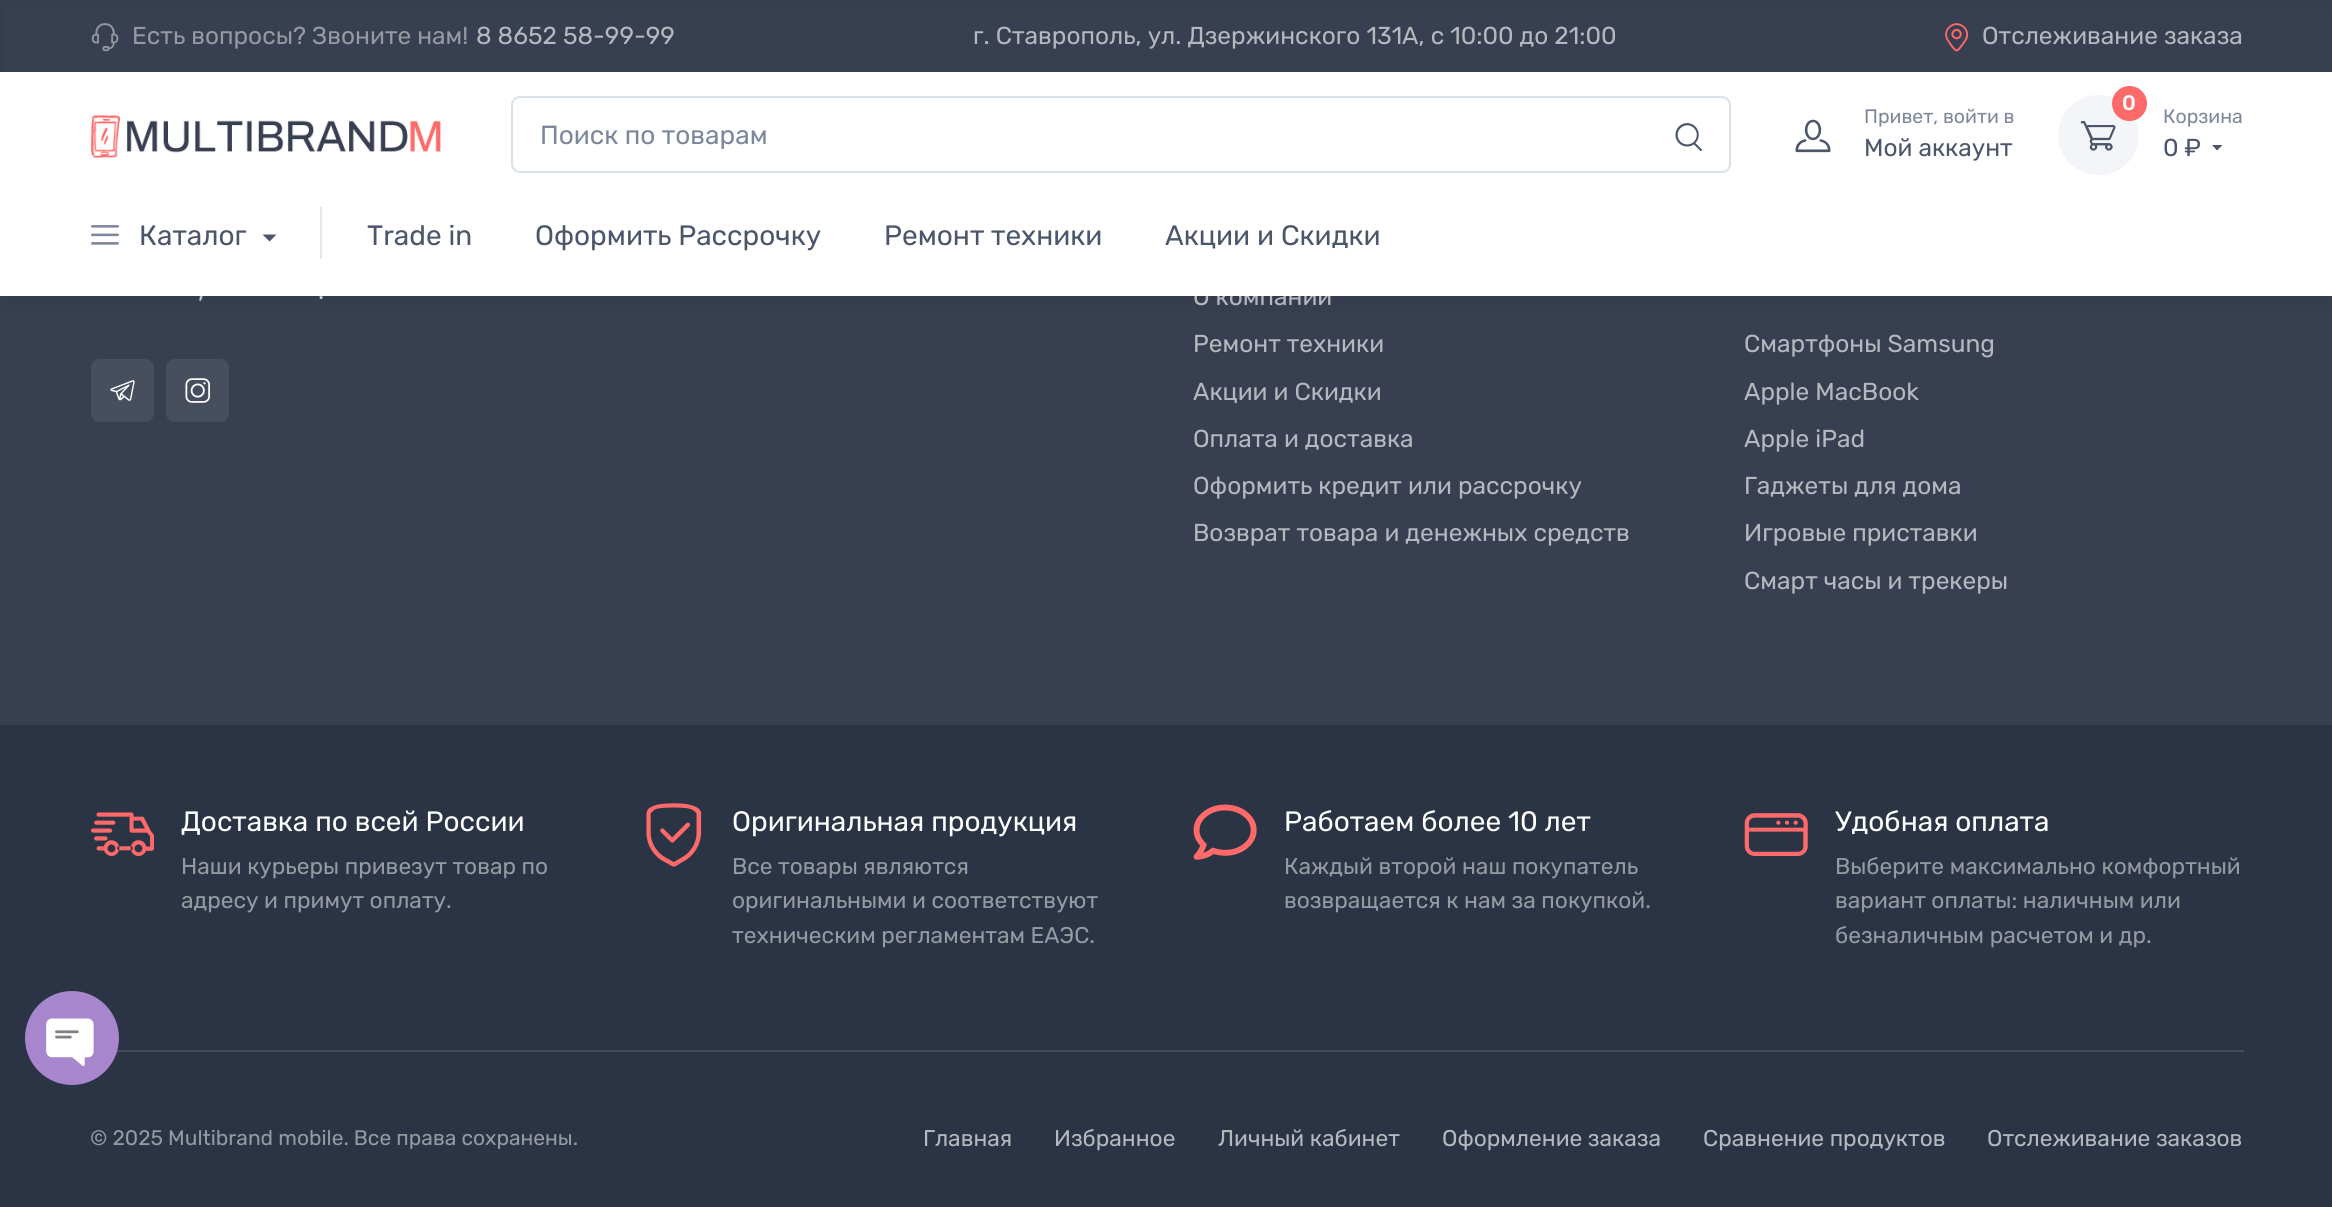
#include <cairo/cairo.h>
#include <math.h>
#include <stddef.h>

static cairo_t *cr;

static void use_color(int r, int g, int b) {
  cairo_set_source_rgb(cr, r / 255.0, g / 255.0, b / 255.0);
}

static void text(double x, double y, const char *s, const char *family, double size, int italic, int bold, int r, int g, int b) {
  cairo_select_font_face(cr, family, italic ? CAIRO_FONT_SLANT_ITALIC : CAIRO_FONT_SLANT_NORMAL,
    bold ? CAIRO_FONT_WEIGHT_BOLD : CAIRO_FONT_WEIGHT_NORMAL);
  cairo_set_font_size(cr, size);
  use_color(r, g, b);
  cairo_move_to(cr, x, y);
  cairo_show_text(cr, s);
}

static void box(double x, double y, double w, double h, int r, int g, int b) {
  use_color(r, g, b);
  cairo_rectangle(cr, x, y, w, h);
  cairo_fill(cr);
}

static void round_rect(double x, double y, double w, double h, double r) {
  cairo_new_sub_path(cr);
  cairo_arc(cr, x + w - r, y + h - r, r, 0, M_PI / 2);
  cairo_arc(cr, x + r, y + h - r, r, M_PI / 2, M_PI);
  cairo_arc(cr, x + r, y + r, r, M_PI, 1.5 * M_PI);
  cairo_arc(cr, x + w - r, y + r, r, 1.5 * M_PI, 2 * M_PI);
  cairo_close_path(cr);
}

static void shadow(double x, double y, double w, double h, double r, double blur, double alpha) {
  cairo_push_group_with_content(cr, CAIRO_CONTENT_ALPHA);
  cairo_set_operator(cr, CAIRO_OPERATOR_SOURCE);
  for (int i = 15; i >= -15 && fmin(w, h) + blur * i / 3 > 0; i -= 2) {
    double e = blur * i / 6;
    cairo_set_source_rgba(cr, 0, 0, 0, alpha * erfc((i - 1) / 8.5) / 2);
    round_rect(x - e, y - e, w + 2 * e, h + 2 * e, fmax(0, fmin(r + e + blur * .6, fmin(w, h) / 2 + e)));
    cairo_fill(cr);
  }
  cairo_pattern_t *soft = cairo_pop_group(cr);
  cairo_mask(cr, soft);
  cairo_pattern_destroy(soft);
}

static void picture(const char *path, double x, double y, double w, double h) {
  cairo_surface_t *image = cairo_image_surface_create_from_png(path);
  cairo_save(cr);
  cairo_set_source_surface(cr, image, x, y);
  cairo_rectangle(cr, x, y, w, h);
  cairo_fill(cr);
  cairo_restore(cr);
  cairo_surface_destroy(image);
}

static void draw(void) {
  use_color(55, 63, 80);
  cairo_paint(cr);
  box(0, 725, 2332, 482, 43, 52, 69);
  box(116, 1050, 2128, 2, 68, 76, 91);
  picture("img_01.png", 25, 991, 94, 94);
  use_color(0, 0, 0);
  shadow(2, 9, 2329, 292, 0, 10.5, 0.06);
  box(3, 10, 2327, 62, 55, 63, 80);
  picture("img_02.png", 91, 23, 28, 29);
  picture("img_03.png", 1945, 23, 24, 29);
  use_color(71, 78, 94);
  round_rect(91, 359, 63, 63, 9);
  cairo_fill(cr);
  picture("img_09.png", 110, 380, 25, 21);
  round_rect(166, 359, 63, 63, 9);
  cairo_fill(cr);
  picture("img_10.png", 185, 378, 25, 25);
  picture("img_11.png", 91, 812, 63, 44);
  picture("img_12.png", 646, 803, 56, 64);
  picture("img_13.png", 1193, 804, 64, 56);
  picture("img_14.png", 1744, 813, 64, 43);
  text(132, 44, "Есть вопросы? Звоните нам!", "Rubik", 24.5, 0, 0, 149, 154, 162);
  text(476, 44, "8 8652 58-99-99", "Rubik", 24.5, 0, 0, 181, 184, 190);
  text(973, 44, "г. Ставрополь, ул. Дзержинского 131А, с 10:00 до 21:00", "Rubik", 24.5, 0, 0, 181, 184, 190);
  text(1982, 44, "Отслеживание заказа", "Rubik", 24.5, 0, 0, 181, 184, 190);
  text(198, 299, ",", "Rubik", 24.5, 0, 0, 195, 197, 203);
  text(318, 299, ".", "Rubik", 24.5, 0, 0, 195, 197, 203);
  text(1193, 305, "О компании", "Rubik", 24.5, 0, 0, 181, 184, 190);
  box(0, 72, 2332, 224, 255, 255, 255);
  box(320, 207, 2, 52, 227, 233, 239);
  use_color(75, 86, 107);
  cairo_new_path(cr);
  cairo_move_to(cr, 262.5, 234.5);
  cairo_line_to(cr, 276.5, 234.5);
  cairo_line_to(cr, 269.5, 241.5);
  cairo_close_path(cr);
  cairo_fill(cr);
  text(139, 245, "Каталог", "Rubik", 28, 0, 0, 75, 86, 107);
  picture("img_08.png", 91, 225, 28, 20);
  text(1165, 245, "Акции и Скидки", "Rubik", 28, 0, 0, 75, 86, 107);
  text(884, 245, "Ремонт техники", "Rubik", 28, 0, 0, 75, 86, 107);
  text(535, 245, "Оформить Рассрочку", "Rubik", 28, 0, 0, 75, 86, 107);
  text(367, 245, "Trade in", "Rubik", 28, 0, 0, 75, 86, 107);
  use_color(243, 245, 249);
  round_rect(2058, 95, 81, 80, 40);
  cairo_fill(cr);
  use_color(254, 105, 106);
  cairo_arc(cr, 2129.5, 103.5, 17.5, 0, 2 * M_PI);
  cairo_fill(cr);
  text(2122, 110, "0", "Rubik Medium", 21, 0, 0, 255, 255, 255);
  picture("img_07.png", 2080, 121, 36, 30);
  use_color(75, 86, 107);
  cairo_new_path(cr);
  cairo_move_to(cr, 2212, 145);
  cairo_line_to(cr, 2222.5, 145);
  cairo_line_to(cr, 2217, 150.5);
  cairo_close_path(cr);
  cairo_fill(cr);
  text(2163, 156, "0 ₽", "Rubik", 24.5, 0, 0, 75, 86, 107);
  text(2163, 123, "Корзина", "Rubik", 19.5, 0, 0, 125, 135, 156);
  picture("img_06.png", 1795, 119, 36, 34);
  text(1864, 156, "Мой аккаунт", "Rubik", 24.5, 0, 0, 75, 86, 107);
  text(1864, 123, "Привет, войти в", "Rubik", 19.5, 0, 0, 125, 135, 156);
  round_rect(512, 97, 1218, 75, 8);
  use_color(218, 225, 231);
  cairo_stroke(cr);
  picture("img_05.png", 1675, 123, 27, 28);
  text(540, 144, "Поиск по товарам", "Rubik", 26.25, 0, 0, 125, 135, 156);
  picture("img_04.png", 91, 115, 350, 43);
  text(1193, 352, "Ремонт техники", "Rubik", 24.5, 0, 0, 181, 184, 190);
  text(1193, 400, "Акции и Скидки", "Rubik", 24.5, 0, 0, 181, 184, 190);
  text(1193, 447, "Оплата и доставка", "Rubik", 24.5, 0, 0, 181, 184, 190);
  text(1193, 494, "Оформить кредит или рассрочку", "Rubik", 24.5, 0, 0, 181, 184, 190);
  text(1193, 541, "Возврат товара и денежных средств", "Rubik", 24.5, 0, 0, 181, 184, 190);
  text(1744, 352, "Смартфоны Samsung", "Rubik", 24.5, 0, 0, 181, 184, 190);
  text(1744, 400, "Apple MacBook", "Rubik", 24.5, 0, 0, 181, 184, 190);
  text(1744, 447, "Apple iPad", "Rubik", 24.5, 0, 0, 181, 184, 190);
  text(1744, 494, "Гаджеты для дома", "Rubik", 24.5, 0, 0, 181, 184, 190);
  text(1744, 541, "Игровые приставки", "Rubik", 24.5, 0, 0, 181, 184, 190);
  text(1744, 589, "Смарт часы и трекеры", "Rubik", 24.5, 0, 0, 181, 184, 190);
  text(181, 831, "Доставка по всей России", "Rubik", 28, 0, 0, 255, 255, 255);
  text(181, 874, "Наши курьеры привезут товар по", "Rubik", 22.75, 0, 0, 149, 154, 162);
  text(181, 908, "адресу и примут оплату.", "Rubik", 22.75, 0, 0, 149, 154, 162);
  text(732, 831, "Оригинальная продукция", "Rubik", 28, 0, 0, 255, 255, 255);
  text(732, 874, "Все товары являются", "Rubik", 22.75, 0, 0, 149, 154, 162);
  text(732, 908, "оригинальными и соответствуют", "Rubik", 22.75, 0, 0, 149, 154, 162);
  text(732, 943, "техническим регламентам ЕАЭС.", "Rubik", 22.75, 0, 0, 149, 154, 162);
  text(1284, 831, "Работаем более 10 лет", "Rubik", 28, 0, 0, 255, 255, 255);
  text(1284, 874, "Каждый второй наш покупатель", "Rubik", 22.75, 0, 0, 149, 154, 162);
  text(1284, 908, "возвращается к нам за покупкой.", "Rubik", 22.75, 0, 0, 149, 154, 162);
  text(1835, 831, "Удобная оплата", "Rubik", 28, 0, 0, 255, 255, 255);
  text(1835, 874, "Выберите максимально комфортный", "Rubik", 22.75, 0, 0, 149, 154, 162);
  text(1835, 908, "вариант оплаты: наличным или", "Rubik", 22.75, 0, 0, 149, 154, 162);
  text(1835, 943, "безналичным расчетом и др.", "Rubik", 22.75, 0, 0, 149, 154, 162);
  text(90, 1145, "© 2025 Multibrand mobile. Все права сохранены.", "Rubik", 21, 0, 0, 149, 154, 162);
  text(923, 1146, "Главная", "Rubik", 22.75, 0, 0, 181, 184, 190);
  text(1054, 1146, "Избранное", "Rubik", 22.75, 0, 0, 181, 184, 190);
  text(1218, 1146, "Личный кабинет", "Rubik", 22.75, 0, 0, 181, 184, 190);
  text(1442, 1146, "Оформление заказа", "Rubik", 22.75, 0, 0, 181, 184, 190);
  text(1703, 1146, "Сравнение продуктов", "Rubik", 22.75, 0, 0, 181, 184, 190);
  text(1987, 1146, "Отслеживание заказов", "Rubik", 22.75, 0, 0, 181, 184, 190);
}

int main(void) {
  cairo_surface_t *surface = cairo_image_surface_create(CAIRO_FORMAT_RGB24, 2332, 1207);
  cr = cairo_create(surface);
  cairo_font_options_t *options = cairo_font_options_create();
  cairo_font_options_set_hint_metrics(options, CAIRO_HINT_METRICS_OFF);
  cairo_font_options_set_hint_style(options, CAIRO_HINT_STYLE_NONE);
  cairo_set_font_options(cr, options);
  cairo_set_miter_limit(cr, 4);
  draw();
  cairo_surface_write_to_png(surface, "out.png");
  cairo_font_options_destroy(options);
  cairo_destroy(cr);
  cairo_surface_destroy(surface);
  return 0;
}
